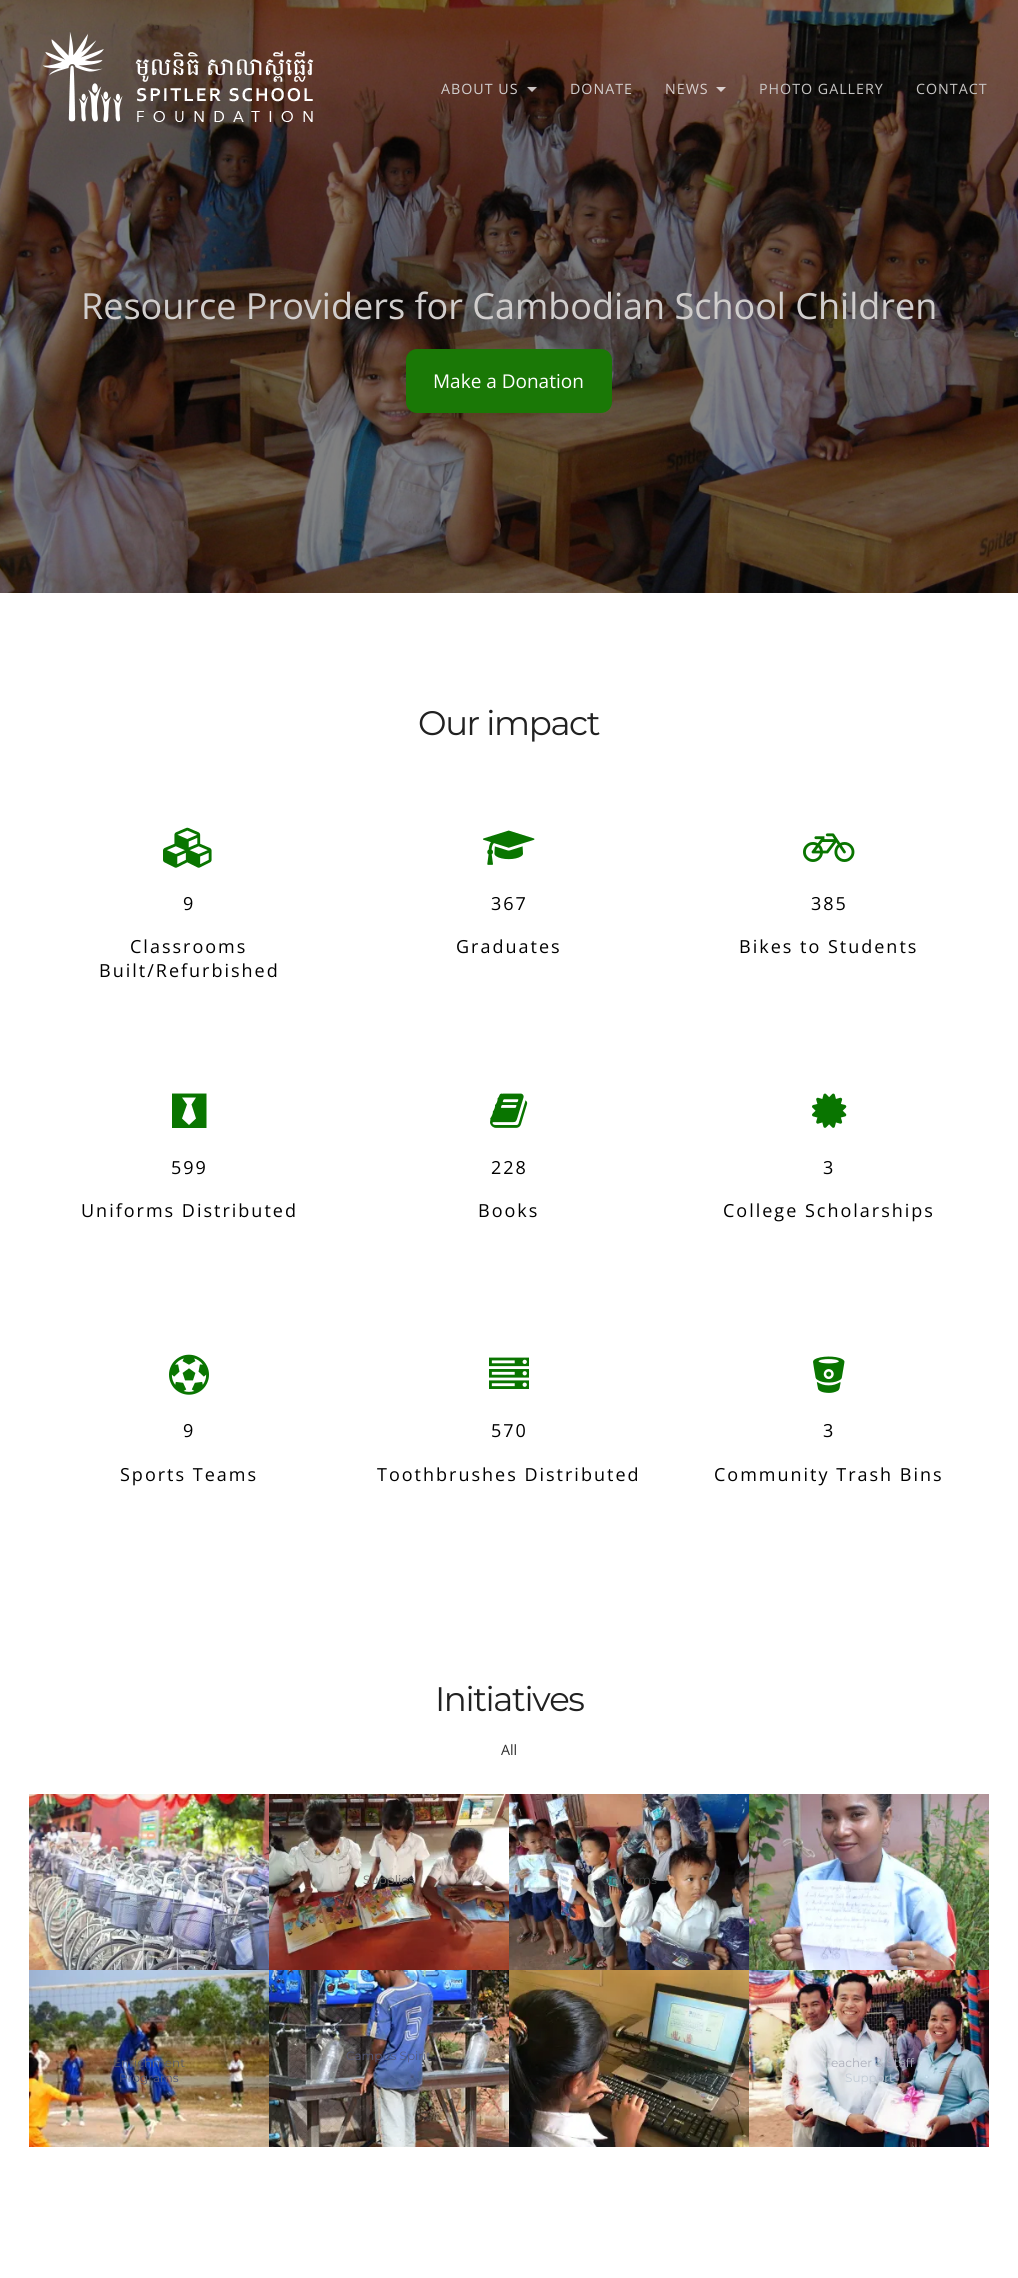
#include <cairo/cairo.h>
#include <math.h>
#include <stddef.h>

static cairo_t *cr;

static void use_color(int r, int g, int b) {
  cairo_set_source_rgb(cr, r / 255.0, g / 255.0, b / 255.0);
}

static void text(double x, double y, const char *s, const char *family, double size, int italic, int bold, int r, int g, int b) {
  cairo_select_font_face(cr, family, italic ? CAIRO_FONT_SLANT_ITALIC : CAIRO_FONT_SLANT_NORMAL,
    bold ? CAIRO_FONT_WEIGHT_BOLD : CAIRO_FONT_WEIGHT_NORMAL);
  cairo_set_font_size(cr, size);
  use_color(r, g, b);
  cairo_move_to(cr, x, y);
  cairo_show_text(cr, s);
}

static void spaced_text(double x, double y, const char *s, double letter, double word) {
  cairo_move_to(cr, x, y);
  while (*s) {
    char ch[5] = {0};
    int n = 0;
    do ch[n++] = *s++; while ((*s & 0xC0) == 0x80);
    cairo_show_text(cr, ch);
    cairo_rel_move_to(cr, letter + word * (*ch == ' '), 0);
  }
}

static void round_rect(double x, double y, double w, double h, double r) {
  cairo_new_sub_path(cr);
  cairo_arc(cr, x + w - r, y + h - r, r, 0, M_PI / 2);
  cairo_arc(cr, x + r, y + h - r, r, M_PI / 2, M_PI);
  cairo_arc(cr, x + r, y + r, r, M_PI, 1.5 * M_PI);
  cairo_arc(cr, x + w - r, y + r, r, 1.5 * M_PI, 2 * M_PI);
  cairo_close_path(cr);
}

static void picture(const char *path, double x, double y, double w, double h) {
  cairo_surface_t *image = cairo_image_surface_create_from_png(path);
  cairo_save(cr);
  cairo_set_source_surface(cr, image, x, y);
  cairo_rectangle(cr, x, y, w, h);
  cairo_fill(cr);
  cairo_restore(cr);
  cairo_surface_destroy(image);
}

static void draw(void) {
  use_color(255, 255, 255);
  cairo_paint(cr);
  picture("img_01.png", 0, 0, 1018, 593);
  picture("img_02.png", 43, 32, 271, 91);
  cairo_set_source_rgba(cr, 1, 1, 1, 0.75);
  cairo_new_path(cr);
  cairo_move_to(cr, 527, 87);
  cairo_line_to(cr, 537, 87);
  cairo_line_to(cr, 532, 92);
  cairo_close_path(cr);
  cairo_fill(cr);
  cairo_new_path(cr);
  cairo_move_to(cr, 716, 87);
  cairo_line_to(cr, 726, 87);
  cairo_line_to(cr, 721, 92);
  cairo_close_path(cr);
  cairo_fill(cr);
  use_color(26, 120, 6);
  round_rect(406, 349, 206, 64, 11);
  cairo_fill(cr);
  picture("img_03.png", 163, 827, 49, 41);
  picture("img_04.png", 483, 830, 52, 35);
  picture("img_05.png", 803, 833, 52, 29);
  use_color(9, 117, 0);
  cairo_new_path(cr);
  cairo_move_to(cr, 172, 1093.5);
  cairo_line_to(cr, 206.5, 1093.5);
  cairo_line_to(cr, 206.5, 1128);
  cairo_line_to(cr, 172, 1128);
  cairo_close_path(cr);
  cairo_move_to(cr, 196, 1118.5);
  cairo_line_to(cr, 191.5, 1104.5);
  cairo_line_to(cr, 196, 1097.5);
  cairo_line_to(cr, 182, 1097.5);
  cairo_line_to(cr, 187, 1104.5);
  cairo_line_to(cr, 182, 1118.5);
  cairo_line_to(cr, 189, 1125);
  cairo_close_path(cr);
  cairo_fill(cr);
  picture("img_06.png", 490, 1093, 38, 35);
  picture("img_07.png", 812, 1093, 35, 35);
  picture("img_08.png", 169, 1354, 40, 41);
  picture("img_09.png", 489, 1357, 40, 32);
  picture("img_10.png", 813, 1356, 32, 37);
  picture("img_11.png", 29, 1794, 240, 176);
  picture("img_12.png", 269, 1794, 240, 176);
  picture("img_13.png", 509, 1794, 240, 176);
  picture("img_14.png", 749, 1794, 240, 176);
  picture("img_15.png", 29, 1970, 240, 177);
  picture("img_16.png", 269, 1970, 240, 177);
  picture("img_17.png", 509, 1970, 240, 177);
  picture("img_18.png", 749, 1970, 240, 177);
  cairo_select_font_face(cr, "Open Sans", CAIRO_FONT_SLANT_NORMAL, CAIRO_FONT_WEIGHT_NORMAL);
  cairo_set_font_size(cr, 14.25);
  use_color(209, 206, 205);
  spaced_text(441, 94, "ABOUT US", 1, 0);
  spaced_text(570, 94, "DONATE", 1, 0);
  use_color(216, 207, 205);
  spaced_text(665, 94, "NEWS", 1, 0);
  use_color(200, 198, 197);
  spaced_text(759, 94, "PHOTO GALLERY", 1, 0);
  spaced_text(916, 94, "CONTACT", 1, 0);
  text(81, 319, "Resource Providers for Cambodian School Children", "Open Sans", 36, 0, 0, 209, 206, 205);
  text(433, 388, "Make a Donation", "Open Sans", 19, 0, 0, 255, 255, 255);
  cairo_select_font_face(cr, "Montserrat Thin", CAIRO_FONT_SLANT_NORMAL, CAIRO_FONT_WEIGHT_NORMAL);
  cairo_set_font_size(cr, 34);
  use_color(33, 33, 33);
  spaced_text(418, 735, "Our impact", -1.4, 0);
  cairo_select_font_face(cr, "Open Sans", CAIRO_FONT_SLANT_NORMAL, CAIRO_FONT_WEIGHT_NORMAL);
  cairo_set_font_size(cr, 18);
  use_color(0, 0, 0);
  spaced_text(183, 910, "9", 2, 0);
  spaced_text(130, 953, "Classrooms", 2, 0);
  spaced_text(99, 977, "Built/Refurbished", 2, 0);
  spaced_text(491, 910, "367", 2, 0);
  spaced_text(456, 953, "Graduates", 2, 0);
  spaced_text(811, 910, "385", 2, 0);
  spaced_text(739, 953, "Bikes to Students", 2, 0);
  spaced_text(171, 1174, "599", 2, 0);
  spaced_text(81, 1217, "Uniforms Distributed", 2, 0);
  spaced_text(491, 1174, "228", 2, 0);
  spaced_text(478, 1217, "Books", 2, 0);
  spaced_text(823, 1174, "3", 2, 0);
  spaced_text(723, 1217, "College Scholarships", 2, 0);
  spaced_text(183, 1437, "9", 2, 0);
  spaced_text(120, 1481, "Sports Teams", 2, 0);
  spaced_text(491, 1437, "570", 2, 0);
  spaced_text(377, 1481, "Toothbrushes Distributed", 2, 0);
  spaced_text(823, 1437, "3", 2, 0);
  spaced_text(714, 1481, "Community Trash Bins", 2, 0);
  cairo_select_font_face(cr, "Montserrat Thin", CAIRO_FONT_SLANT_NORMAL, CAIRO_FONT_WEIGHT_NORMAL);
  cairo_set_font_size(cr, 34);
  use_color(33, 33, 33);
  spaced_text(435, 1711, "Initiatives", -1.4, 0);
  text(501, 1755, "All", "Open Sans", 14.25, 0, 0, 45, 45, 45);
  text(167, 1884, "s", "Montserrat Thin", 12, 0, 0, 204, 211, 213);
  text(363, 1884, "Supplies", "Montserrat Thin", 12, 0, 0, 115, 111, 108);
  text(601, 1884, "Uniforms", "Montserrat Thin", 12, 0, 0, 65, 69, 68);
  text(113, 2067, "Enrichment", "Montserrat Thin", 12, 0, 0, 88, 91, 108);
  text(119, 2082, "Programs", "Montserrat Thin", 12, 0, 0, 86, 89, 120);
  text(346, 2060, "Campus Spirit", "Montserrat Thin", 12, 0, 0, 85, 91, 126);
  text(824, 2067, "Teacher & Staff", "Montserrat Thin", 12, 0, 0, 172, 174, 186);
  text(845, 2082, "Support", "Montserrat Thin", 12, 0, 0, 193, 203, 213);
}

int main(void) {
  cairo_surface_t *surface = cairo_image_surface_create(CAIRO_FORMAT_RGB24, 1018, 2278);
  cr = cairo_create(surface);
  cairo_font_options_t *options = cairo_font_options_create();
  cairo_font_options_set_hint_metrics(options, CAIRO_HINT_METRICS_OFF);
  cairo_font_options_set_hint_style(options, CAIRO_HINT_STYLE_NONE);
  cairo_set_font_options(cr, options);
  cairo_set_miter_limit(cr, 4);
  draw();
  cairo_surface_write_to_png(surface, "out.png");
  cairo_font_options_destroy(options);
  cairo_destroy(cr);
  cairo_surface_destroy(surface);
  return 0;
}
